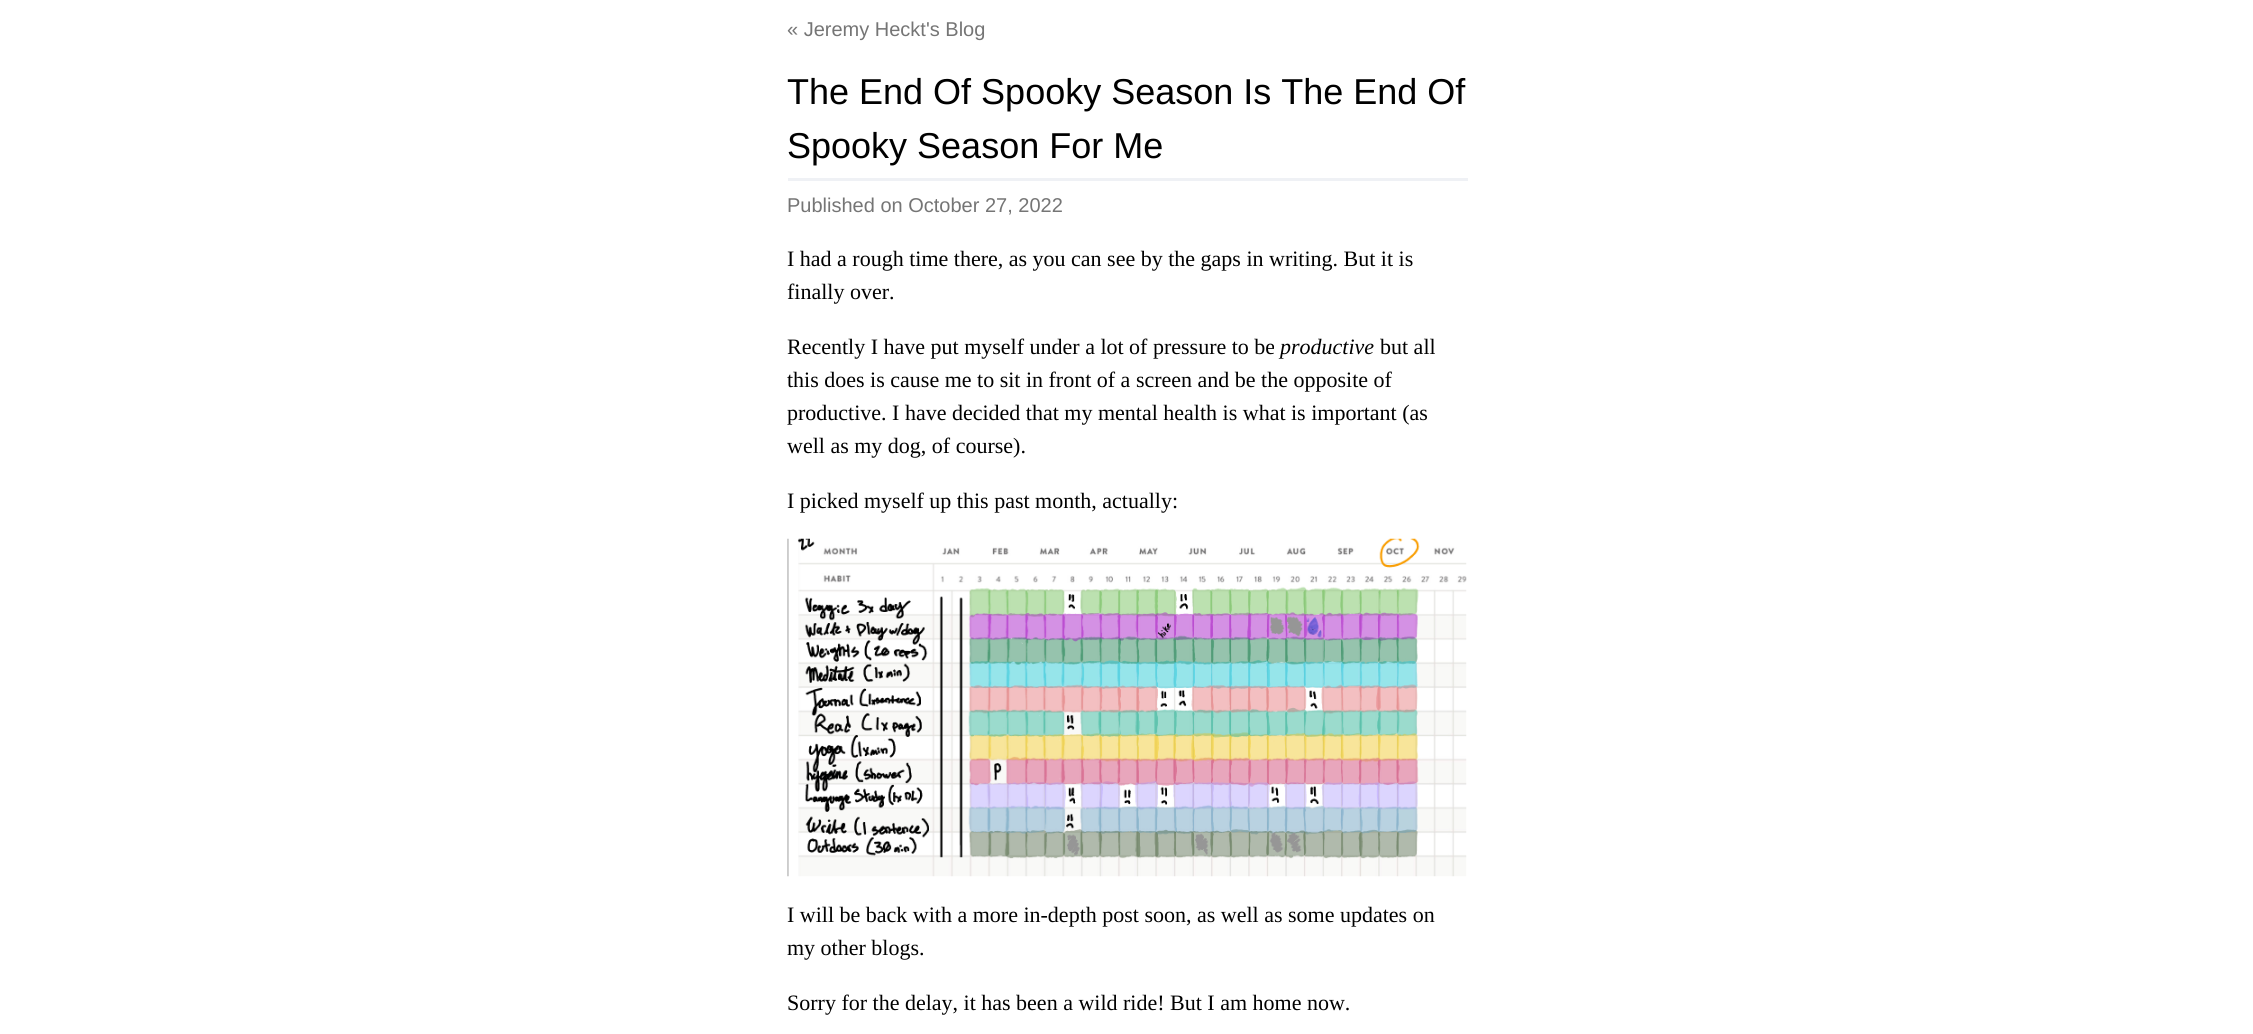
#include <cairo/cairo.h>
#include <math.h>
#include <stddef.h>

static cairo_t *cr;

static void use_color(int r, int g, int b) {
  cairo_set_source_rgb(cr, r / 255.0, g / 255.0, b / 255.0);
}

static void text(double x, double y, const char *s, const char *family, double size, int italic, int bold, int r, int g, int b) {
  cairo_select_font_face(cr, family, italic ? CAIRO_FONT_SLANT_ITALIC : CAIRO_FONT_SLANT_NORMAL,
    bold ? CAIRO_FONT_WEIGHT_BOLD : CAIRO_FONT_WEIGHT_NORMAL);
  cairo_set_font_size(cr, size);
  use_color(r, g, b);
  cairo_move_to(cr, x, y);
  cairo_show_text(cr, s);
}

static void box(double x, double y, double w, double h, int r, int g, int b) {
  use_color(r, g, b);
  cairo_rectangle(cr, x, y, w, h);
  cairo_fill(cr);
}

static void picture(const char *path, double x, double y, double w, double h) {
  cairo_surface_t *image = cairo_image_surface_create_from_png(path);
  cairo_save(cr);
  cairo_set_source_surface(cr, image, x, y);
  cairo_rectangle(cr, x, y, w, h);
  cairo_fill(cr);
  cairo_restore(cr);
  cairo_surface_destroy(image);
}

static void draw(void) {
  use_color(255, 255, 255);
  cairo_paint(cr);
  box(788, 178, 680, 3, 239, 241, 245);
  picture("img_01.png", 787, 538, 680, 339);
  text(787, 36, "« Jeremy Heckt's Blog", "Liberation Sans", 20, 0, 0, 117, 117, 117);
  text(787, 104, "The End Of Spooky Season Is The End Of", "Liberation Sans", 36, 0, 0, 0, 0, 0);
  text(787, 158, "Spooky Season For Me", "Liberation Sans", 36, 0, 0, 0, 0, 0);
  text(787, 212, "Published on October 27, 2022", "Liberation Sans", 20, 0, 0, 117, 117, 117);
  text(787, 266, "I had a rough time there, as you can see by the gaps in writing. But it is", "Liberation Serif", 22, 0, 0, 0, 0, 0);
  text(787, 299, "finally over.", "Liberation Serif", 22, 0, 0, 0, 0, 0);
  text(787, 354, "Recently I have put myself under a lot of pressure to be", "Liberation Serif", 22, 0, 0, 0, 0, 0);
  text(1280, 354, "productive", "Liberation Serif", 22, 1, 0, 0, 0, 0);
  text(1380, 354, "but all", "Liberation Serif", 22, 0, 0, 0, 0, 0);
  text(787, 387, "this does is cause me to sit in front of a screen and be the opposite of", "Liberation Serif", 22, 0, 0, 0, 0, 0);
  text(787, 420, "productive. I have decided that my mental health is what is important (as", "Liberation Serif", 22, 0, 0, 0, 0, 0);
  text(787, 453, "well as my dog, of course).", "Liberation Serif", 22, 0, 0, 0, 0, 0);
  text(787, 508, "I picked myself up this past month, actually:", "Liberation Serif", 22, 0, 0, 0, 0, 0);
  text(787, 922, "I will be back with a more in-depth post soon, as well as some updates on", "Liberation Serif", 22, 0, 0, 0, 0, 0);
  text(787, 955, "my other blogs.", "Liberation Serif", 22, 0, 0, 0, 0, 0);
  text(787, 1010, "Sorry for the delay, it has been a wild ride! But I am home now.", "Liberation Serif", 22, 0, 0, 0, 0, 0);
}

int main(void) {
  cairo_surface_t *surface = cairo_image_surface_create(CAIRO_FORMAT_RGB24, 2253, 1034);
  cr = cairo_create(surface);
  cairo_font_options_t *options = cairo_font_options_create();
  cairo_font_options_set_hint_metrics(options, CAIRO_HINT_METRICS_OFF);
  cairo_font_options_set_hint_style(options, CAIRO_HINT_STYLE_NONE);
  cairo_set_font_options(cr, options);
  cairo_set_miter_limit(cr, 4);
  draw();
  cairo_surface_write_to_png(surface, "out.png");
  cairo_font_options_destroy(options);
  cairo_destroy(cr);
  cairo_surface_destroy(surface);
  return 0;
}
